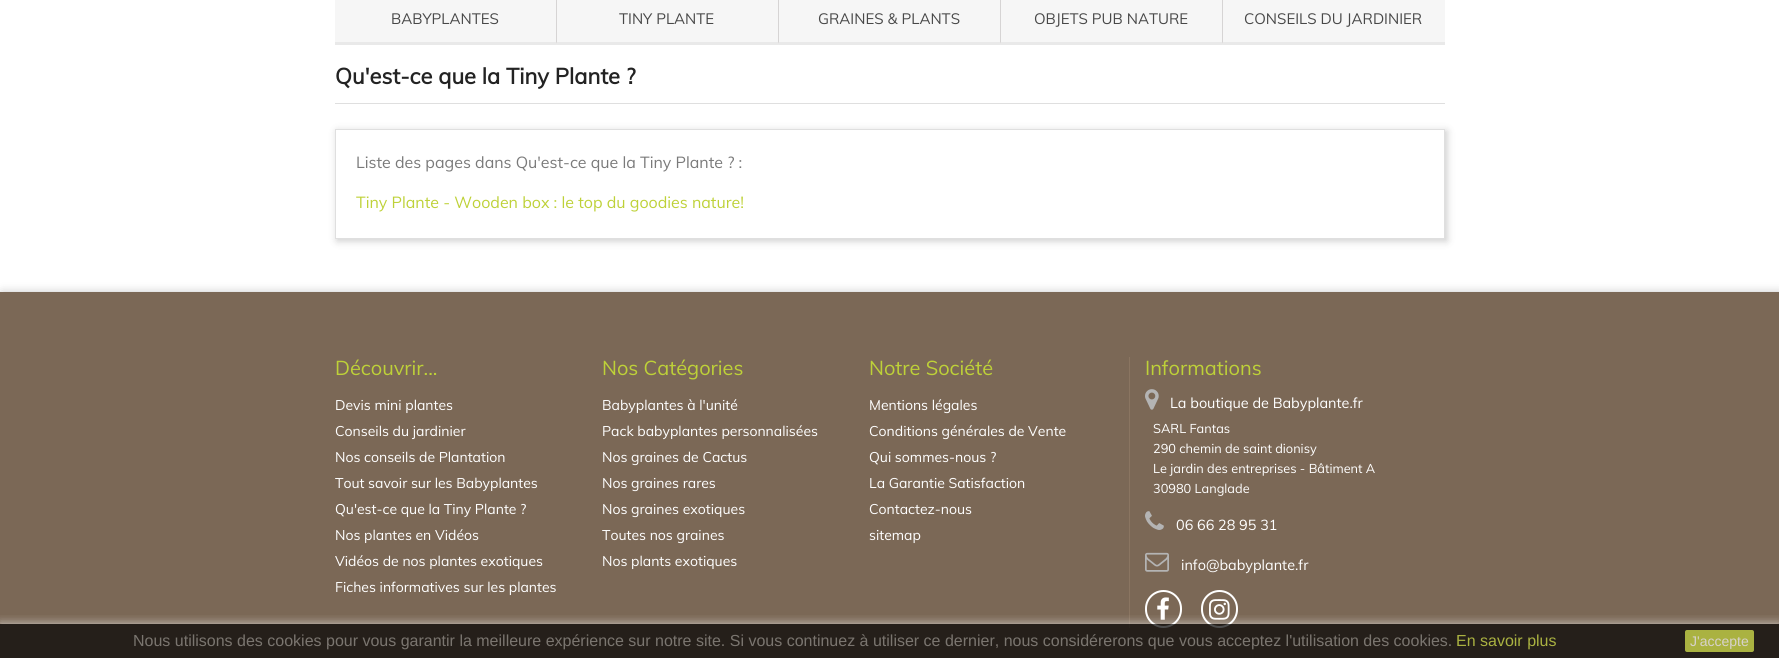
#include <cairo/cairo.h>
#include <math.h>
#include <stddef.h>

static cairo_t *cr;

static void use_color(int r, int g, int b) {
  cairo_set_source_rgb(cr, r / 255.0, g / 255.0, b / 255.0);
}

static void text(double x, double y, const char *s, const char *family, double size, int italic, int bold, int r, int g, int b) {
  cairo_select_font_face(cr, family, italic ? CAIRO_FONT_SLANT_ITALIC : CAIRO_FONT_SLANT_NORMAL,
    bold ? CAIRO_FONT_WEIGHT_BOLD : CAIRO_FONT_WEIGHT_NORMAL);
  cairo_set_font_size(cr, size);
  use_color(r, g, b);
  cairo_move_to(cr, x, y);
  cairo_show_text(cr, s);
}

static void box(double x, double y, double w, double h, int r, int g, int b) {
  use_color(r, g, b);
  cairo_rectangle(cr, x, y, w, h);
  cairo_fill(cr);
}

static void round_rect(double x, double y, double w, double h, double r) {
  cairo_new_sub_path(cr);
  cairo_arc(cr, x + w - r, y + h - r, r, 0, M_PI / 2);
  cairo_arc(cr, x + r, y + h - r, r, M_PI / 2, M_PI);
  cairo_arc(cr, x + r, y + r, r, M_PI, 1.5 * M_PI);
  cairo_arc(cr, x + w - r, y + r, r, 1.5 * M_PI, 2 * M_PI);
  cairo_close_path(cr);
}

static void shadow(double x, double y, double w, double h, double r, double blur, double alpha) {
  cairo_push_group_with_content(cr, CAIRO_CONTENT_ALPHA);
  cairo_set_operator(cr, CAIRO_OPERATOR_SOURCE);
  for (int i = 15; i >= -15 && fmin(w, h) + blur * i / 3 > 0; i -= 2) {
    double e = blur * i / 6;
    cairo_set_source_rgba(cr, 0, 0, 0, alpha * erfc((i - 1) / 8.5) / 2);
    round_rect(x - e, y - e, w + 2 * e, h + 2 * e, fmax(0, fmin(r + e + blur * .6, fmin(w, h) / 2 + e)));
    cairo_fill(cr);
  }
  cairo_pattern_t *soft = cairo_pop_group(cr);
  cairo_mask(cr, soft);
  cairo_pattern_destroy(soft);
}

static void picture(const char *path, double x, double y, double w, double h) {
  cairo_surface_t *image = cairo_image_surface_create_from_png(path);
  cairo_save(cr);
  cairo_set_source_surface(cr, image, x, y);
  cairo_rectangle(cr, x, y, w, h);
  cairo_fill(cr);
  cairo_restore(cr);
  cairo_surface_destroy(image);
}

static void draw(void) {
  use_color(255, 255, 255);
  cairo_paint(cr);
  box(335, 0, 888, 45, 246, 246, 246);
  use_color(214, 212, 212);
  cairo_new_path(cr);
  cairo_move_to(cr, 557, -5);
  cairo_line_to(cr, 557, 45);
  cairo_line_to(cr, 556, 42);
  cairo_line_to(cr, 556, -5);
  cairo_close_path(cr);
  cairo_fill(cr);
  use_color(233, 233, 233);
  cairo_new_path(cr);
  cairo_move_to(cr, 557, 45);
  cairo_line_to(cr, 335, 45);
  cairo_line_to(cr, 335, 42);
  cairo_line_to(cr, 556, 42);
  cairo_close_path(cr);
  cairo_fill(cr);
  use_color(214, 212, 212);
  cairo_new_path(cr);
  cairo_move_to(cr, 779, -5);
  cairo_line_to(cr, 779, 45);
  cairo_line_to(cr, 778, 42);
  cairo_line_to(cr, 778, -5);
  cairo_close_path(cr);
  cairo_fill(cr);
  use_color(233, 233, 233);
  cairo_new_path(cr);
  cairo_move_to(cr, 779, 45);
  cairo_line_to(cr, 557, 45);
  cairo_line_to(cr, 557, 42);
  cairo_line_to(cr, 778, 42);
  cairo_close_path(cr);
  cairo_fill(cr);
  use_color(214, 212, 212);
  cairo_new_path(cr);
  cairo_move_to(cr, 1001, -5);
  cairo_line_to(cr, 1001, 45);
  cairo_line_to(cr, 1000, 42);
  cairo_line_to(cr, 1000, -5);
  cairo_close_path(cr);
  cairo_fill(cr);
  use_color(233, 233, 233);
  cairo_new_path(cr);
  cairo_move_to(cr, 1001, 45);
  cairo_line_to(cr, 779, 45);
  cairo_line_to(cr, 779, 42);
  cairo_line_to(cr, 1000, 42);
  cairo_close_path(cr);
  cairo_fill(cr);
  use_color(214, 212, 212);
  cairo_new_path(cr);
  cairo_move_to(cr, 1223, -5);
  cairo_line_to(cr, 1223, 45);
  cairo_line_to(cr, 1222, 42);
  cairo_line_to(cr, 1222, -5);
  cairo_close_path(cr);
  cairo_fill(cr);
  use_color(233, 233, 233);
  cairo_new_path(cr);
  cairo_move_to(cr, 1223, 45);
  cairo_line_to(cr, 1001, 45);
  cairo_line_to(cr, 1001, 42);
  cairo_line_to(cr, 1222, 42);
  cairo_close_path(cr);
  cairo_fill(cr);
  box(1223, 0, 222, 42, 246, 246, 246);
  box(1223, 42, 222, 3, 233, 233, 233);
  box(335, 103, 1110, 1, 223, 223, 223);
  cairo_save(cr);
  cairo_set_fill_rule(cr, CAIRO_FILL_RULE_EVEN_ODD);
  cairo_new_path(cr);
  cairo_move_to(cr, 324, 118);
  cairo_line_to(cr, 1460, 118);
  cairo_line_to(cr, 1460, 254);
  cairo_line_to(cr, 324, 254);
  cairo_close_path(cr);
  cairo_move_to(cr, 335, 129);
  cairo_line_to(cr, 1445, 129);
  cairo_line_to(cr, 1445, 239);
  cairo_line_to(cr, 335, 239);
  cairo_close_path(cr);
  cairo_clip(cr);
  use_color(0, 0, 0);
  shadow(337, 131, 1110, 110, 0, 4, 0.2);
  cairo_restore(cr);
  cairo_rectangle(cr, 335.5, 129.5, 1109, 109);
  cairo_set_line_width(cr, 1);
  cairo_stroke(cr);
  use_color(0, 0, 0);
  shadow(2, 294, 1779, 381, 0, 5.5, 0.3);
  box(0, 292, 1779, 366, 123, 104, 86);
  box(1129, 357, 1, 271, 138, 117, 97);
  picture("img_01.png", 1145, 389, 14, 21);
  picture("img_02.png", 1145, 511, 19, 19);
  picture("img_03.png", 1145, 552, 24, 20);
  round_rect(1146, 591, 35, 36, 17.5);
  use_color(255, 255, 255);
  cairo_set_line_width(cr, 2);
  cairo_stroke(cr);
  picture("img_04.png", 1157, 597, 12, 23);
  round_rect(1202, 591, 35, 36, 17.5);
  cairo_stroke(cr);
  picture("img_05.png", 1209, 599, 21, 21);
  cairo_save(cr);
  cairo_rectangle(cr, 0, 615, 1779, 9);
  cairo_clip(cr);
  use_color(255, 255, 255);
  shadow(0, 624, 1779, 34, 0, 5, 0.7);
  cairo_restore(cr);
  cairo_set_source_rgba(cr, 0, 0, 0, 0.7);
  cairo_rectangle(cr, 0, 624, 1779, 34);
  cairo_fill(cr);
  use_color(170, 178, 65);
  round_rect(1685, 630, 69, 22, 2);
  cairo_fill(cr);
  text(391, 24, "BABYPLANTES", "Muli", 15, 0, 0, 72, 72, 72);
  text(619, 24, "TINY PLANTE", "Muli", 15, 0, 0, 72, 72, 72);
  text(818, 24, "GRAINES & PLANTS", "Muli", 15, 0, 0, 72, 72, 72);
  text(1034, 24, "OBJETS PUB NATURE", "Muli", 15, 0, 0, 72, 72, 72);
  text(1244, 24, "CONSEILS DU JARDINIER", "Muli", 15, 0, 0, 72, 72, 72);
  text(335, 84, "Qu'est-ce que la Tiny Plante ?", "Muli", 22, 0, 1, 35, 35, 35);
  text(356, 168, "Liste des pages dans Qu'est-ce que la Tiny Plante ? :", "Muli", 16, 0, 0, 122, 122, 122);
  text(356, 208, "Tiny Plante - Wooden box : le top du goodies nature!", "Muli", 16, 0, 0, 190, 209, 56);
  text(335, 375, "Découvrir...", "Muli", 20, 0, 0, 190, 209, 56);
  text(335, 410, "Devis mini plantes", "Muli", 14, 0, 0, 255, 255, 255);
  text(335, 436, "Conseils du jardinier", "Muli", 14, 0, 0, 255, 255, 255);
  text(335, 462, "Nos conseils de Plantation", "Muli", 14, 0, 0, 255, 255, 255);
  text(335, 488, "Tout savoir sur les Babyplantes", "Muli", 14, 0, 0, 255, 255, 255);
  text(335, 514, "Qu'est-ce que la Tiny Plante ?", "Muli", 14, 0, 0, 255, 255, 255);
  text(335, 540, "Nos plantes en Vidéos", "Muli", 14, 0, 0, 255, 255, 255);
  text(335, 566, "Vidéos de nos plantes exotiques", "Muli", 14, 0, 0, 255, 255, 255);
  text(335, 592, "Fiches informatives sur les plantes", "Muli", 14, 0, 0, 255, 255, 255);
  text(602, 375, "Nos Catégories", "Muli", 20, 0, 0, 190, 209, 56);
  text(602, 410, "Babyplantes à l'unité", "Muli", 14, 0, 0, 255, 255, 255);
  text(602, 436, "Pack babyplantes personnalisées", "Muli", 14, 0, 0, 255, 255, 255);
  text(602, 462, "Nos graines de Cactus", "Muli", 14, 0, 0, 255, 255, 255);
  text(602, 488, "Nos graines rares", "Muli", 14, 0, 0, 255, 255, 255);
  text(602, 514, "Nos graines exotiques", "Muli", 14, 0, 0, 255, 255, 255);
  text(602, 540, "Toutes nos graines", "Muli", 14, 0, 0, 255, 255, 255);
  text(602, 566, "Nos plants exotiques", "Muli", 14, 0, 0, 255, 255, 255);
  text(869, 375, "Notre Société", "Muli", 20, 0, 0, 190, 209, 56);
  text(869, 410, "Mentions légales", "Muli", 14, 0, 0, 255, 255, 255);
  text(869, 436, "Conditions générales de Vente", "Muli", 14, 0, 0, 255, 255, 255);
  text(869, 462, "Qui sommes-nous ?", "Muli", 14, 0, 0, 255, 255, 255);
  text(869, 488, "La Garantie Satisfaction", "Muli", 14, 0, 0, 255, 255, 255);
  text(869, 514, "Contactez-nous", "Muli", 14, 0, 0, 255, 255, 255);
  text(869, 540, "sitemap", "Muli", 14, 0, 0, 255, 255, 255);
  text(1145, 375, "Informations", "Muli", 20, 0, 0, 190, 209, 56);
  text(1170, 408, "La boutique de Babyplante.fr", "Muli", 14.4, 0, 0, 255, 255, 255);
  text(1153, 433, "SARL Fantas", "Muli", 12.75, 0, 0, 255, 255, 255);
  text(1153, 453, "290 chemin de saint dionisy", "Muli", 12.75, 0, 0, 255, 255, 255);
  text(1153, 473, "Le jardin des entreprises - Bâtiment A", "Muli", 12.75, 0, 0, 255, 255, 255);
  text(1153, 493, "30980 Langlade", "Muli", 12.75, 0, 0, 255, 255, 255);
  text(1176, 530, "06 66 28 95 31", "Muli", 14.4, 0, 0, 255, 255, 255);
  text(1181, 570, "info@babyplante.fr", "Muli", 14.4, 0, 0, 255, 255, 255);
  text(133, 646, "Nous utilisons des cookies pour vous garantir la meilleure expérience sur notre site. Si vous continuez à utiliser ce dernier, nous considérerons que vous acceptez l'utilisation des cookies.", "Liberation Sans", 16, 0, 0, 122, 117, 111);
  text(1456, 646, "En savoir plus", "Liberation Sans", 16, 0, 0, 170, 178, 65);
  text(1690, 646, "J'accepte", "Liberation Sans", 14, 0, 0, 215, 210, 204);
}

int main(void) {
  cairo_surface_t *surface = cairo_image_surface_create(CAIRO_FORMAT_RGB24, 1779, 658);
  cr = cairo_create(surface);
  cairo_font_options_t *options = cairo_font_options_create();
  cairo_font_options_set_hint_metrics(options, CAIRO_HINT_METRICS_OFF);
  cairo_font_options_set_hint_style(options, CAIRO_HINT_STYLE_NONE);
  cairo_set_font_options(cr, options);
  cairo_set_miter_limit(cr, 4);
  draw();
  cairo_surface_write_to_png(surface, "out.png");
  cairo_font_options_destroy(options);
  cairo_destroy(cr);
  cairo_surface_destroy(surface);
  return 0;
}
